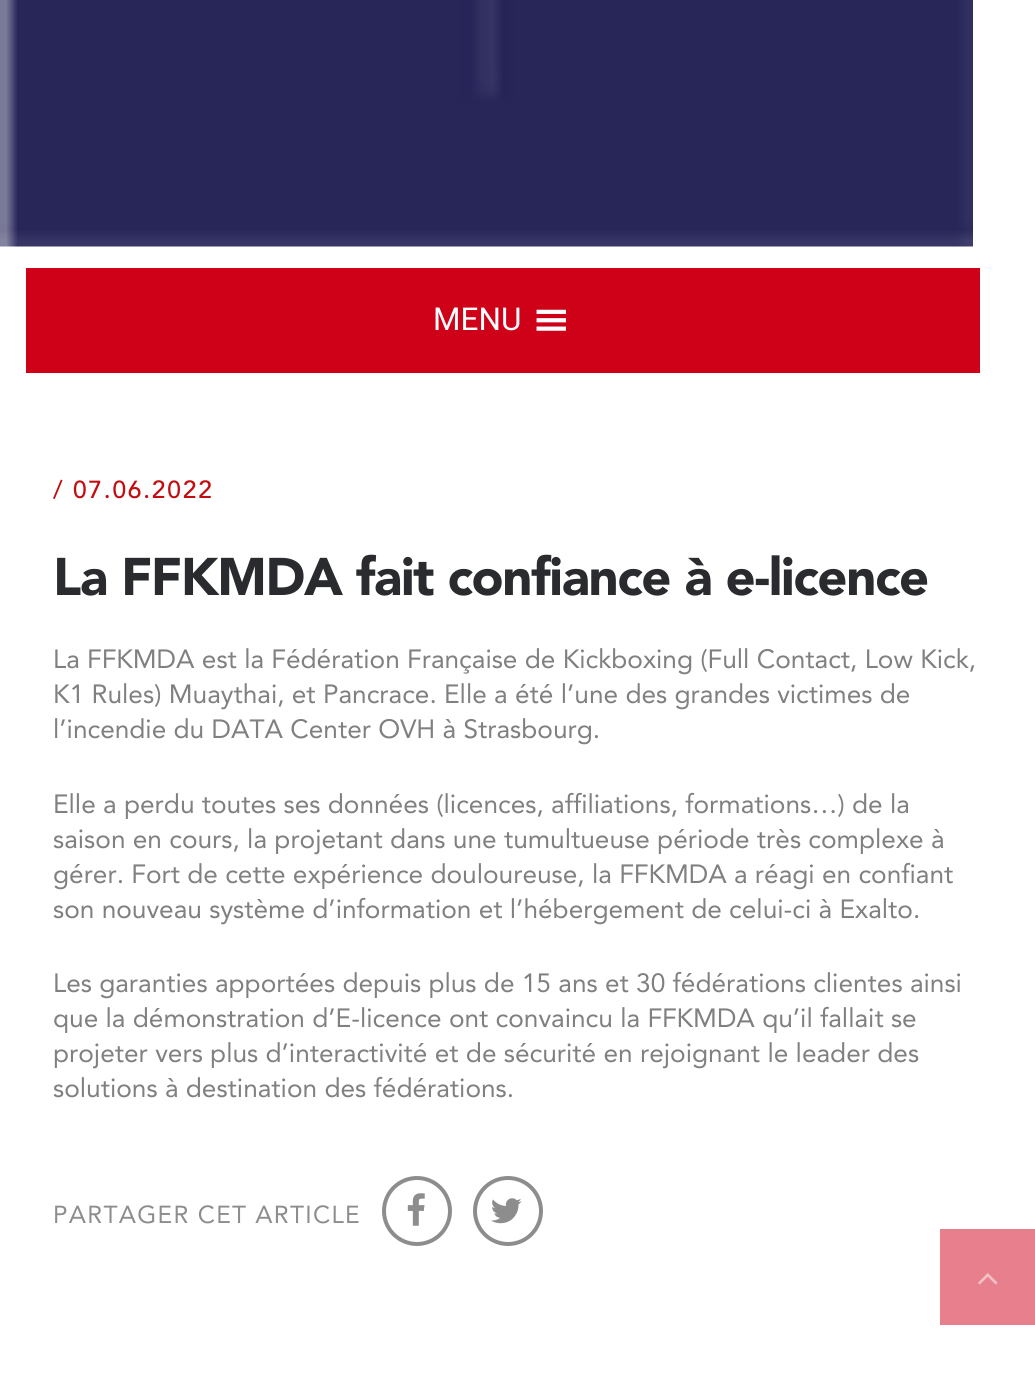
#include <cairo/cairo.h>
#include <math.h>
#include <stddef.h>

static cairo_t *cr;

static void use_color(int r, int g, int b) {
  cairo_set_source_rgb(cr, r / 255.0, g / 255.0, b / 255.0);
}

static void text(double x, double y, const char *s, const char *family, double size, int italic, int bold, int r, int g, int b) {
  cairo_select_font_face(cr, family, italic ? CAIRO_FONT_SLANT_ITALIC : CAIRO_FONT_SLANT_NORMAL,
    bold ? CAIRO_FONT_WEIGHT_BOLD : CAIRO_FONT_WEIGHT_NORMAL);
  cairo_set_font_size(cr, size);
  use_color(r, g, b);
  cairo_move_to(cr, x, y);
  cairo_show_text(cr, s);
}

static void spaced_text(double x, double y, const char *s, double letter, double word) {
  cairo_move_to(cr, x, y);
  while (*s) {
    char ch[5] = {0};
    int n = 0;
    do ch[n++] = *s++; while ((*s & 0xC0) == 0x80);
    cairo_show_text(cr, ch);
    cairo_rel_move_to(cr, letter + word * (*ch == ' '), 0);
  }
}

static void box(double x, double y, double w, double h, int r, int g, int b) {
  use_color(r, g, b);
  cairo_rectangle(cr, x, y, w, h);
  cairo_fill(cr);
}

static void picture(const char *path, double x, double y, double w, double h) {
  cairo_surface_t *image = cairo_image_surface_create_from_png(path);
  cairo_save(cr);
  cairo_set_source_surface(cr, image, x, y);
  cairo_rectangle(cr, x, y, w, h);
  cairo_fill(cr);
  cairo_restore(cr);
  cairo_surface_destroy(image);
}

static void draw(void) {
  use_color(255, 255, 255);
  cairo_paint(cr);
  picture("img_01.png", 0, 0, 973, 247);
  box(26, 268, 954, 105, 206, 1, 25);
  picture("img_02.png", 536, 309, 30, 22);
  cairo_arc(cr, 417, 1211, 33, 0, 2 * M_PI);
  use_color(141, 141, 141);
  cairo_set_line_width(cr, 4);
  cairo_stroke(cr);
  picture("img_03.png", 407, 1193, 18, 33);
  cairo_arc(cr, 508, 1211, 33, 0, 2 * M_PI);
  cairo_stroke(cr);
  picture("img_04.png", 491, 1198, 31, 26);
  box(940, 1229, 95, 96, 231, 128, 140);
  picture("img_05.png", 978, 1273, 20, 12);
  text(433, 330, "MENU", "Roboto", 31.5, 0, 0, 255, 255, 255);
  cairo_select_font_face(cr, "Avenir Medium", CAIRO_FONT_SLANT_NORMAL, CAIRO_FONT_WEIGHT_NORMAL);
  cairo_set_font_size(cr, 24.5);
  use_color(194, 13, 17);
  spaced_text(53, 498, "/ 07.06.2022", 1.8, 0);
  cairo_select_font_face(cr, "Avenir Black", CAIRO_FONT_SLANT_NORMAL, CAIRO_FONT_WEIGHT_NORMAL);
  cairo_set_font_size(cr, 52.5);
  use_color(42, 43, 47);
  spaced_text(53, 595, "La FFKMDA fait confiance à e-licence", -1.3, 0);
  text(53, 668, "La FFKMDA est la Fédération Française de Kickboxing (Full Contact, Low Kick,", "Avenir", 26.25, 0, 0, 128, 128, 128);
  text(53, 703, "K1 Rules) Muaythai, et Pancrace. Elle a été l’une des grandes victimes de", "Avenir", 26.25, 0, 0, 128, 128, 128);
  text(53, 738, "l’incendie du DATA Center OVH à Strasbourg.", "Avenir", 26.25, 0, 0, 128, 128, 128);
  text(53, 813, "Elle a perdu toutes ses données (licences, affiliations, formations…) de la", "Avenir", 26.25, 0, 0, 128, 128, 128);
  text(53, 848, "saison en cours, la projetant dans une tumultueuse période très complexe à", "Avenir", 26.25, 0, 0, 128, 128, 128);
  text(53, 883, "gérer. Fort de cette expérience douloureuse, la FFKMDA a réagi en confiant", "Avenir", 26.25, 0, 0, 128, 128, 128);
  text(53, 918, "son nouveau système d’information et l’hébergement de celui-ci à Exalto.", "Avenir", 26.25, 0, 0, 128, 128, 128);
  text(53, 992, "Les garanties apportées depuis plus de 15 ans et 30 fédérations clientes ainsi", "Avenir", 26.25, 0, 0, 128, 128, 128);
  text(53, 1027, "que la démonstration d’E-licence ont convaincu la FFKMDA qu’il fallait se", "Avenir", 26.25, 0, 0, 128, 128, 128);
  text(53, 1062, "projeter vers plus d’interactivité et de sécurité en rejoignant le leader des", "Avenir", 26.25, 0, 0, 128, 128, 128);
  text(53, 1097, "solutions à destination des fédérations.", "Avenir", 26.25, 0, 0, 128, 128, 128);
  cairo_set_font_size(cr, 24.5);
  use_color(141, 141, 141);
  spaced_text(53, 1223, "PARTAGER CET ARTICLE", 1.25, 0);
}

int main(void) {
  cairo_surface_t *surface = cairo_image_surface_create(CAIRO_FORMAT_RGB24, 1035, 1377);
  cr = cairo_create(surface);
  cairo_font_options_t *options = cairo_font_options_create();
  cairo_font_options_set_hint_metrics(options, CAIRO_HINT_METRICS_OFF);
  cairo_font_options_set_hint_style(options, CAIRO_HINT_STYLE_NONE);
  cairo_set_font_options(cr, options);
  cairo_set_miter_limit(cr, 4);
  draw();
  cairo_surface_write_to_png(surface, "out.png");
  cairo_font_options_destroy(options);
  cairo_destroy(cr);
  cairo_surface_destroy(surface);
  return 0;
}
